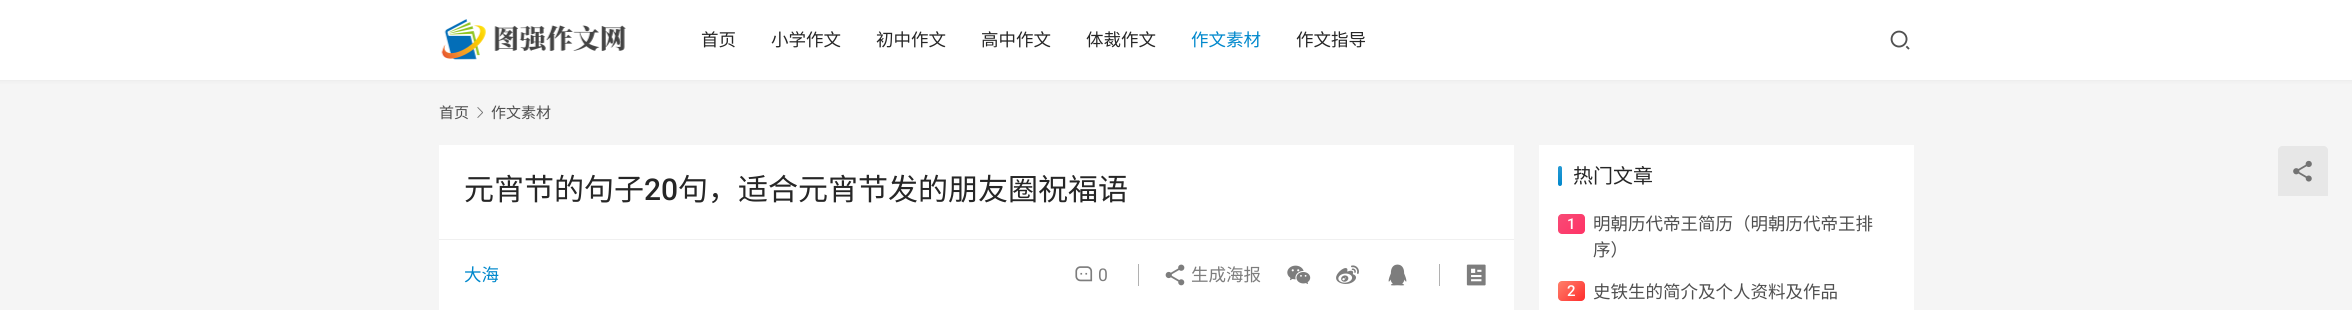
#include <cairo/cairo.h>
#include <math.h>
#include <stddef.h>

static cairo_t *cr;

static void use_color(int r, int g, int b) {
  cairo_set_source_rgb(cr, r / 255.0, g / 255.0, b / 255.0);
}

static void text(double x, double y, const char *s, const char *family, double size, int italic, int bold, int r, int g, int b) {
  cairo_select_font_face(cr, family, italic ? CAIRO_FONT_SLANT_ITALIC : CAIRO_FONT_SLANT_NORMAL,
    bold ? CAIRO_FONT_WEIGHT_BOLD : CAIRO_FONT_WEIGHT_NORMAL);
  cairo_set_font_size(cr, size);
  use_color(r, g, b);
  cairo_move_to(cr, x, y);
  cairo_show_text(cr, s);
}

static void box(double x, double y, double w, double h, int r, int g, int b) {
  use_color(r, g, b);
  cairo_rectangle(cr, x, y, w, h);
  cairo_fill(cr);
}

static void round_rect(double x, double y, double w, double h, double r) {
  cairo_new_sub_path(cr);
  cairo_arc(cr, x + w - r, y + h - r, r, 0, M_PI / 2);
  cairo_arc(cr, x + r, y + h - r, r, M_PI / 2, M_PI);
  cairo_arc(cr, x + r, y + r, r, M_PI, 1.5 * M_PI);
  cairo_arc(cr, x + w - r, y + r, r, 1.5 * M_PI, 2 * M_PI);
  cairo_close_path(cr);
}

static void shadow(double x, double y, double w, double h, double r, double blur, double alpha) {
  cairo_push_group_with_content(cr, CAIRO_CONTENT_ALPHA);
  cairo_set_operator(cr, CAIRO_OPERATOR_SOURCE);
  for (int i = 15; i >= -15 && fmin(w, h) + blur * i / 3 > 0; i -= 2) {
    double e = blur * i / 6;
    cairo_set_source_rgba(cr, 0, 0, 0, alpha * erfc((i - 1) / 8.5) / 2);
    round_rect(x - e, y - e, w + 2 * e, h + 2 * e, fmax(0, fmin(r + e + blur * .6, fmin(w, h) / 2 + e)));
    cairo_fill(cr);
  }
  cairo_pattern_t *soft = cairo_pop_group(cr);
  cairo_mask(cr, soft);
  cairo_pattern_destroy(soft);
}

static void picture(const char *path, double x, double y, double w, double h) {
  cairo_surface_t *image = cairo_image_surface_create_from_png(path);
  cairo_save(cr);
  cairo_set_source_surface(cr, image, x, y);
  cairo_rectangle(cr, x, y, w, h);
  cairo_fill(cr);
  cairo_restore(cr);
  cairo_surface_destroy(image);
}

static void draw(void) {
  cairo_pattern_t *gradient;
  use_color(245, 245, 245);
  cairo_paint(cr);
  use_color(38, 38, 38);
  shadow(-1, -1, 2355, 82, 0, 2, 0.06);
  box(0, 0, 2352, 80, 255, 255, 255);
  picture("img_01.png", 441, 19, 185, 41);
  picture("img_02.png", 1890, 30, 20, 20);
  picture("img_03.png", 477, 107, 6, 11);
  box(439, 145, 1075, 94, 255, 255, 255);
  box(439, 240, 1075, 70, 255, 255, 255);
  box(439, 239, 1075, 1, 240, 240, 240);
  picture("img_04.png", 1075, 266, 18, 16);
  box(1138, 264, 1, 22, 177, 177, 177);
  picture("img_05.png", 1165, 264, 20, 22);
  picture("img_06.png", 1287, 265, 24, 19);
  picture("img_07.png", 1336, 265, 23, 19);
  picture("img_08.png", 1388, 264, 19, 22);
  box(1439, 264, 1, 22, 177, 177, 177);
  picture("img_09.png", 1466, 264, 20, 22);
  box(1539, 145, 375, 165, 255, 255, 255);
  use_color(0, 136, 204);
  round_rect(1558, 166, 4, 20, 2);
  cairo_fill(cr);
  gradient = cairo_pattern_create_linear(1559, 166, 1559, 186);
  cairo_pattern_add_color_stop_rgba(gradient, 0, 1, 1, 1, 0.15);
  cairo_pattern_add_color_stop_rgba(gradient, 1, 1, 1, 1, 0);
  cairo_set_source(cr, gradient);
  cairo_pattern_destroy(gradient);
  round_rect(1558, 166, 4, 20, 2);
  cairo_fill(cr);
  gradient = cairo_pattern_create_linear(1559, 212, 1583, 236);
  cairo_pattern_add_color_stop_rgba(gradient, 0.1, 0.973, 0.286, 0.459, 1);
  cairo_pattern_add_color_stop_rgba(gradient, 1, 1, 0.2, 0.4, 1);
  cairo_set_source(cr, gradient);
  cairo_pattern_destroy(gradient);
  round_rect(1558, 214, 27, 20, 4);
  cairo_fill(cr);
  gradient = cairo_pattern_create_linear(1559, 279, 1583, 303);
  cairo_pattern_add_color_stop_rgba(gradient, 0.1, 1, 0.478, 0.4, 1);
  cairo_pattern_add_color_stop_rgba(gradient, 1, 1, 0.176, 0.176, 1);
  cairo_set_source(cr, gradient);
  cairo_pattern_destroy(gradient);
  round_rect(1558, 281, 27, 20, 4);
  cairo_fill(cr);
  use_color(231, 231, 231);
  cairo_new_path(cr);
  cairo_move_to(cr, 2282, 146);
  cairo_line_to(cr, 2324, 146);
  cairo_curve_to(cr, 2326, 146, 2328, 148, 2328, 150);
  cairo_line_to(cr, 2328, 196);
  cairo_line_to(cr, 2278, 196);
  cairo_line_to(cr, 2278, 150);
  cairo_curve_to(cr, 2278, 148, 2280, 146, 2282, 146);
  cairo_close_path(cr);
  cairo_fill(cr);
  picture("img_10.png", 2293, 160, 19, 22);
  text(701, 46, "首页", "Noto Sans CJK SC", 17.5, 0, 0, 38, 38, 38);
  text(771, 46, "小学作文", "Noto Sans CJK SC", 17.5, 0, 0, 38, 38, 38);
  text(876, 46, "初中作文", "Noto Sans CJK SC", 17.5, 0, 0, 38, 38, 38);
  text(981, 46, "高中作文", "Noto Sans CJK SC", 17.5, 0, 0, 38, 38, 38);
  text(1086, 46, "体裁作文", "Noto Sans CJK SC", 17.5, 0, 0, 38, 38, 38);
  text(1191, 46, "作文素材", "Noto Sans CJK SC", 17.5, 0, 0, 0, 136, 204);
  text(1296, 46, "作文指导", "Noto Sans CJK SC", 17.5, 0, 0, 38, 38, 38);
  text(439, 118, "首页", "Noto Sans CJK SC", 15, 0, 0, 79, 79, 79);
  text(491, 118, "作文素材", "Noto Sans CJK SC", 15, 0, 0, 79, 79, 79);
  text(464, 200, "元宵节的句子", "Noto Sans CJK SC", 30, 0, 0, 38, 38, 38);
  text(644, 200, "20", "Roboto Medium", 30, 0, 0, 38, 38, 38);
  text(678, 200, "句，适合元宵节发的朋友圈祝福语", "Noto Sans CJK SC", 30, 0, 0, 38, 38, 38);
  text(464, 281, "大海", "Noto Sans CJK SC", 17.5, 0, 0, 0, 136, 204);
  text(1098, 281, "0", "Roboto", 17.5, 0, 0, 125, 125, 125);
  text(1191, 281, "生成海报", "Noto Sans CJK SC", 17.5, 0, 0, 125, 125, 125);
  text(1573, 183, "热门文章", "Noto Sans CJK SC", 20, 0, 0, 38, 38, 38);
  text(1567, 229, "1", "Roboto Medium", 15, 0, 0, 255, 255, 255);
  text(1593, 230, "明朝历代帝王简历（明朝历代帝王排", "Noto Sans CJK SC", 17.5, 0, 0, 79, 79, 79);
  text(1593, 256, "序）", "Noto Sans CJK SC", 17.5, 0, 0, 79, 79, 79);
  text(1567, 296, "2", "Roboto Medium", 15, 0, 0, 255, 255, 255);
  text(1593, 298, "史铁生的简介及个人资料及作品", "Noto Sans CJK SC", 17.5, 0, 0, 79, 79, 79);
}

int main(void) {
  cairo_surface_t *surface = cairo_image_surface_create(CAIRO_FORMAT_RGB24, 2352, 310);
  cr = cairo_create(surface);
  cairo_font_options_t *options = cairo_font_options_create();
  cairo_font_options_set_hint_metrics(options, CAIRO_HINT_METRICS_OFF);
  cairo_font_options_set_hint_style(options, CAIRO_HINT_STYLE_NONE);
  cairo_set_font_options(cr, options);
  cairo_set_miter_limit(cr, 4);
  draw();
  cairo_surface_write_to_png(surface, "out.png");
  cairo_font_options_destroy(options);
  cairo_destroy(cr);
  cairo_surface_destroy(surface);
  return 0;
}
